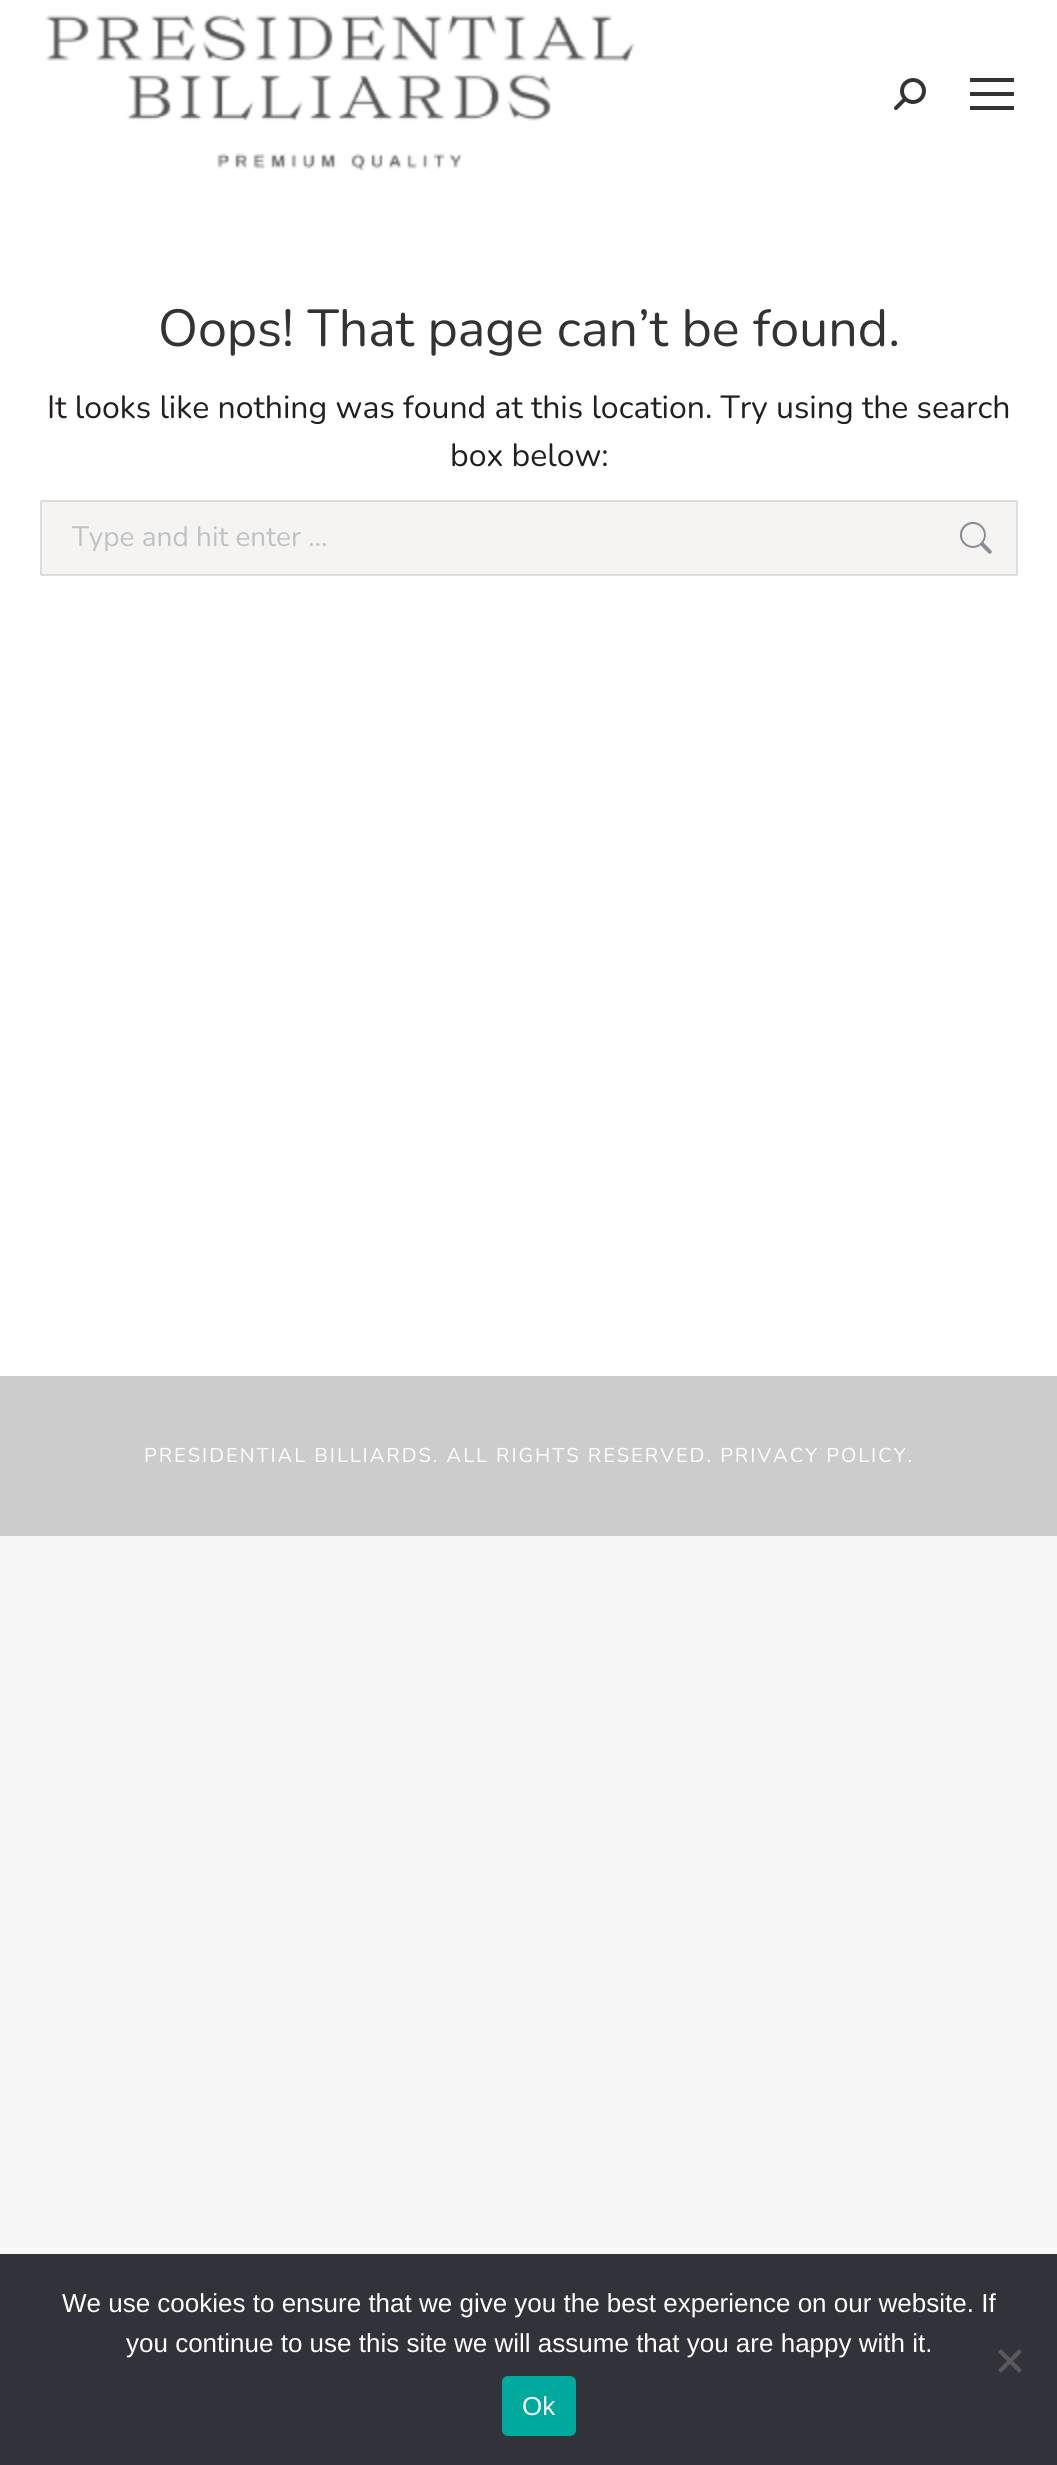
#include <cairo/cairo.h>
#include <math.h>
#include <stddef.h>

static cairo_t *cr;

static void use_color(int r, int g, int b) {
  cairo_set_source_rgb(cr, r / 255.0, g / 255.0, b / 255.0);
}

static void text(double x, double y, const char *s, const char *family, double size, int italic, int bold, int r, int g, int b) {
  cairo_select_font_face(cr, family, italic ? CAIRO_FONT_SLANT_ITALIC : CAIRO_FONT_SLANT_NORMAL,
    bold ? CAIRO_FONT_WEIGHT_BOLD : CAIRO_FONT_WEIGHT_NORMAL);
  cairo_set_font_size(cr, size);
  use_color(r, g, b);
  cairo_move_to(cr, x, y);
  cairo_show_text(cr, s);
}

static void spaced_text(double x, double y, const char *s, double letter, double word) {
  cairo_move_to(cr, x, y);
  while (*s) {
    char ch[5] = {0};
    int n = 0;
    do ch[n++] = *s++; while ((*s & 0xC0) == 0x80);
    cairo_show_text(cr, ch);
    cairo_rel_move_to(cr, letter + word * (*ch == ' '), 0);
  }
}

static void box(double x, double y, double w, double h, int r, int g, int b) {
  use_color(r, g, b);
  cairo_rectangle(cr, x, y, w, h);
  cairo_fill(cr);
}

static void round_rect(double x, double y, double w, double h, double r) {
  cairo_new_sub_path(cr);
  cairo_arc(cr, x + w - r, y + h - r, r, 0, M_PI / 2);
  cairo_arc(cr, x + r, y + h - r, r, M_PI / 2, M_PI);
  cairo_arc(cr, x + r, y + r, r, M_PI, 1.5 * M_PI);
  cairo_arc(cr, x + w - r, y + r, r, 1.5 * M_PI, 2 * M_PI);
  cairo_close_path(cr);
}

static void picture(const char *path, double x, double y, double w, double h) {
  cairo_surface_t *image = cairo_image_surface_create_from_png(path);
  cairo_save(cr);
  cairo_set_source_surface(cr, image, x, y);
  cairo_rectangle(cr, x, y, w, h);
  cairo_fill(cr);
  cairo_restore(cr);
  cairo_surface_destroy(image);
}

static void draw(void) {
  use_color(247, 247, 247);
  cairo_paint(cr);
  box(0, 0, 1057, 1376, 255, 255, 255);
  picture("img_01.png", 45, 15, 590, 156);
  picture("img_02.png", 894, 78, 32, 32);
  box(970, 78, 44, 4, 51, 51, 51);
  box(970, 92, 44, 4, 51, 51, 51);
  box(970, 106, 44, 4, 51, 51, 51);
  use_color(245, 244, 242);
  round_rect(41, 501, 976, 74, 1);
  cairo_fill_preserve(cr);
  use_color(222, 221, 219);
  cairo_stroke(cr);
  picture("img_03.png", 960, 522, 32, 32);
  box(0, 1376, 1057, 160, 204, 204, 204);
  box(0, 2254, 1057, 211, 50, 50, 58);
  use_color(89, 89, 93);
  cairo_new_path(cr);
  cairo_move_to(cr, 1019, 2349);
  cairo_line_to(cr, 1022, 2352);
  cairo_line_to(cr, 1001, 2373);
  cairo_line_to(cr, 998, 2370);
  cairo_close_path(cr);
  cairo_fill(cr);
  cairo_new_path(cr);
  cairo_move_to(cr, 998, 2352);
  cairo_line_to(cr, 1001, 2349);
  cairo_line_to(cr, 1022, 2370);
  cairo_line_to(cr, 1019, 2373);
  cairo_close_path(cr);
  cairo_fill(cr);
  use_color(0, 169, 157);
  round_rect(502, 2376, 74, 60, 6);
  cairo_fill(cr);
  text(158, 346, "Oops! That page can’t be found.", "Nunito", 52, 0, 0, 51, 51, 51);
  text(47, 418, "It looks like nothing was found at this location. Try using the search", "Nunito", 32, 0, 0, 35, 31, 32);
  text(450, 466, "box below:", "Nunito", 32, 0, 0, 35, 31, 32);
  text(72, 546, "Type and hit enter …", "Nunito", 28, 0, 0, 192, 193, 195);
  cairo_set_font_size(cr, 20);
  use_color(255, 255, 255);
  spaced_text(144, 1462, "PRESIDENTIAL BILLIARDS. ALL RIGHTS RESERVED. PRIVACY POLICY.", 2, 0);
  text(62, 2312, "We use cookies to ensure that we give you the best experience on our website. If", "Liberation Sans", 26, 0, 0, 255, 255, 255);
  text(126, 2352, "you continue to use this site we will assume that you are happy with it.", "Liberation Sans", 26, 0, 0, 255, 255, 255);
  text(522, 2415, "Ok", "Liberation Sans", 26, 0, 0, 255, 255, 255);
}

int main(void) {
  cairo_surface_t *surface = cairo_image_surface_create(CAIRO_FORMAT_RGB24, 1057, 2465);
  cr = cairo_create(surface);
  cairo_font_options_t *options = cairo_font_options_create();
  cairo_font_options_set_hint_metrics(options, CAIRO_HINT_METRICS_OFF);
  cairo_font_options_set_hint_style(options, CAIRO_HINT_STYLE_NONE);
  cairo_set_font_options(cr, options);
  cairo_set_miter_limit(cr, 4);
  draw();
  cairo_surface_write_to_png(surface, "out.png");
  cairo_font_options_destroy(options);
  cairo_destroy(cr);
  cairo_surface_destroy(surface);
  return 0;
}
